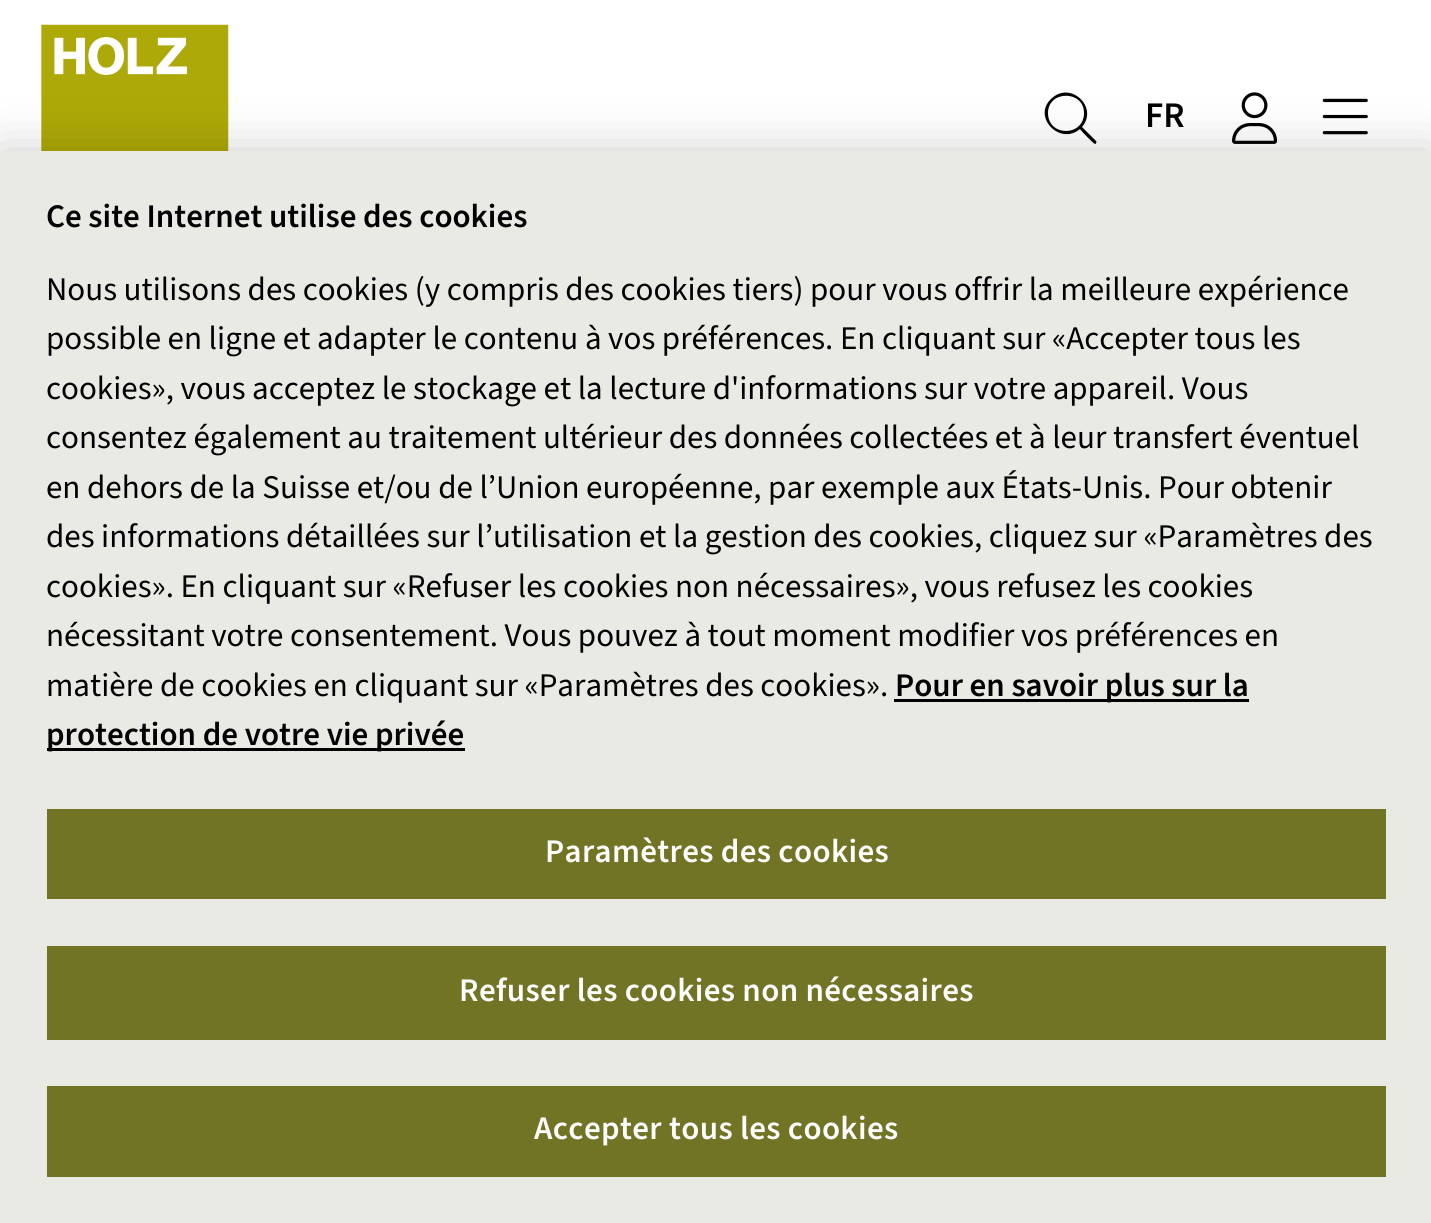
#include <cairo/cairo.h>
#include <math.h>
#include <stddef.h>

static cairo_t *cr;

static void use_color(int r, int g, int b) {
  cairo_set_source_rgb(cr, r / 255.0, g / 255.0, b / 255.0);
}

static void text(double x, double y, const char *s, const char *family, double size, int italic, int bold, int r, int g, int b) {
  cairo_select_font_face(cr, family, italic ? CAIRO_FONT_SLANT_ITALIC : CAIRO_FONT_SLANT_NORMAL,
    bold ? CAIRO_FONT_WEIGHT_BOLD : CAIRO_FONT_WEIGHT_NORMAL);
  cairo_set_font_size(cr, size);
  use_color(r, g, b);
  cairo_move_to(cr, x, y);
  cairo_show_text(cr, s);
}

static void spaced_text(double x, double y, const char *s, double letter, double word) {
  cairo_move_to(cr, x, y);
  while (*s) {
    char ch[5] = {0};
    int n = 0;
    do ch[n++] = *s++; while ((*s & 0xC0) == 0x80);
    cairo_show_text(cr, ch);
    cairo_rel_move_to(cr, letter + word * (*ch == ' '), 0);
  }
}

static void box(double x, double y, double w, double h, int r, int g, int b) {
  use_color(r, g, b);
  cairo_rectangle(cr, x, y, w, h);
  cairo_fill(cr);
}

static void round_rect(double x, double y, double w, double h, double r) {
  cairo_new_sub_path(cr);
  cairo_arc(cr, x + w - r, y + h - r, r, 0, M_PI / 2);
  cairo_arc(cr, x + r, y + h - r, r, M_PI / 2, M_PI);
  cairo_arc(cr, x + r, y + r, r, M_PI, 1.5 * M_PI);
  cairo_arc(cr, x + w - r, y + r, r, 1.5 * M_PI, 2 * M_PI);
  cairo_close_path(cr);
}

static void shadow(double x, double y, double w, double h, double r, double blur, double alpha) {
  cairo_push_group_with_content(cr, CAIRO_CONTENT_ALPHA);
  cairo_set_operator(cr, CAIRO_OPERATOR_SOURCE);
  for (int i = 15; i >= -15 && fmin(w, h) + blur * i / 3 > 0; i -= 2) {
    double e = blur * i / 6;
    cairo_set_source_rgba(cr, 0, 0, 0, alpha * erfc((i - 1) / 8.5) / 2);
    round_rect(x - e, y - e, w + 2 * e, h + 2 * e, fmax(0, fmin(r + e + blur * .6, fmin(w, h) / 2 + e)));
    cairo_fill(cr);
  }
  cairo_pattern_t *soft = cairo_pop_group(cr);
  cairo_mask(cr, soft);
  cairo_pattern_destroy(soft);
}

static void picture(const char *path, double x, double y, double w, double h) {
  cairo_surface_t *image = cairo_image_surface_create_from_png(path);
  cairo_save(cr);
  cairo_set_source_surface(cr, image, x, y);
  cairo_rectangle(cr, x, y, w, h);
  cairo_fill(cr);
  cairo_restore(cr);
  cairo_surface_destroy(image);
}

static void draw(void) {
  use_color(255, 255, 255);
  cairo_paint(cr);
  picture("img_01.png", 41, 24, 188, 127);
  use_color(0, 0, 0);
  cairo_new_path(cr);
  cairo_move_to(cr, 1084, 113);
  cairo_curve_to(cr, 1084, 90, 1048, 90, 1048, 113);
  cairo_curve_to(cr, 1048, 137, 1084, 137, 1084, 113);
  cairo_close_path(cr);
  cairo_move_to(cr, 1080, 129);
  cairo_curve_to(cr, 1060, 146, 1032, 117, 1051, 99);
  cairo_curve_to(cr, 1070, 80, 1099, 107, 1082, 127);
  cairo_line_to(cr, 1096, 141);
  cairo_curve_to(cr, 1097, 142, 1096, 144, 1095, 144);
  cairo_curve_to(cr, 1094, 144, 1081, 131, 1080, 129);
  cairo_close_path(cr);
  cairo_fill(cr);
  picture("img_02.png", 1232, 92, 46, 52);
  picture("img_03.png", 1322, 98, 46, 37);
  use_color(0, 0, 0);
  shadow(0, 151, 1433, 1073, 0, 25, 0.2);
  box(0, 151, 1431, 1072, 233, 234, 228);
  box(894, 699, 355, 3, 0, 0, 0);
  box(47, 748, 418, 3, 0, 0, 0);
  box(47, 809, 1339, 90, 113, 115, 37);
  box(47, 946, 1339, 94, 113, 115, 37);
  box(47, 1086, 1339, 91, 113, 115, 37);
  text(1145, 127, "FR", "Source Sans 3 ExtraLight", 36, 0, 0, 0, 0, 0);
  text(46, 227, "Ce site Internet utilise des cookies", "Source Sans 3 ExtraLight", 33, 0, 0, 0, 0, 0);
  text(46, 300, "Nous utilisons des cookies (y compris des cookies tiers) pour vous offrir la meilleure expérience", "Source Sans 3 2 ExtraLight", 33, 0, 0, 0, 0, 0);
  text(46, 349, "possible en ligne et adapter le contenu à vos préférences. En cliquant sur «Accepter tous les", "Source Sans 3 2 ExtraLight", 33, 0, 0, 0, 0, 0);
  text(46, 399, "cookies», vous acceptez le stockage et la lecture d'informations sur votre appareil. Vous", "Source Sans 3 2 ExtraLight", 33, 0, 0, 0, 0, 0);
  text(46, 448, "consentez également au traitement ultérieur des données collectées et à leur transfert éventuel", "Source Sans 3 2 ExtraLight", 33, 0, 0, 0, 0, 0);
  text(46, 498, "en dehors de la Suisse et/ou de l’Union européenne, par exemple aux États-Unis. Pour obtenir", "Source Sans 3 2 ExtraLight", 33, 0, 0, 0, 0, 0);
  text(46, 547, "des informations détaillées sur l’utilisation et la gestion des cookies, cliquez sur «Paramètres des", "Source Sans 3 2 ExtraLight", 33, 0, 0, 0, 0, 0);
  text(46, 597, "cookies». En cliquant sur «Refuser les cookies non nécessaires», vous refusez les cookies", "Source Sans 3 2 ExtraLight", 33, 0, 0, 0, 0, 0);
  text(46, 646, "nécessitant votre consentement. Vous pouvez à tout moment modifier vos préférences en", "Source Sans 3 2 ExtraLight", 33, 0, 0, 0, 0, 0);
  text(46, 696, "matière de cookies en cliquant sur «Paramètres des cookies».", "Source Sans 3 2 ExtraLight", 33, 0, 0, 0, 0, 0);
  text(895, 696, "Pour en savoir plus sur la", "Source Sans 3 ExtraLight", 33, 0, 0, 0, 0, 0);
  text(46, 745, "protection de votre vie privée", "Source Sans 3 ExtraLight", 33, 0, 0, 0, 0, 0);
  use_color(255, 255, 255);
  spaced_text(545, 862, "Paramètres des cookies", 0.35, 0);
  spaced_text(459, 1001, "Refuser les cookies non nécessaires", 0.35, 0);
  spaced_text(534, 1139, "Accepter tous les cookies", 0.35, 0);
}

int main(void) {
  cairo_surface_t *surface = cairo_image_surface_create(CAIRO_FORMAT_RGB24, 1431, 1223);
  cr = cairo_create(surface);
  cairo_font_options_t *options = cairo_font_options_create();
  cairo_font_options_set_hint_metrics(options, CAIRO_HINT_METRICS_OFF);
  cairo_font_options_set_hint_style(options, CAIRO_HINT_STYLE_NONE);
  cairo_set_font_options(cr, options);
  cairo_set_miter_limit(cr, 4);
  draw();
  cairo_surface_write_to_png(surface, "out.png");
  cairo_font_options_destroy(options);
  cairo_destroy(cr);
  cairo_surface_destroy(surface);
  return 0;
}
